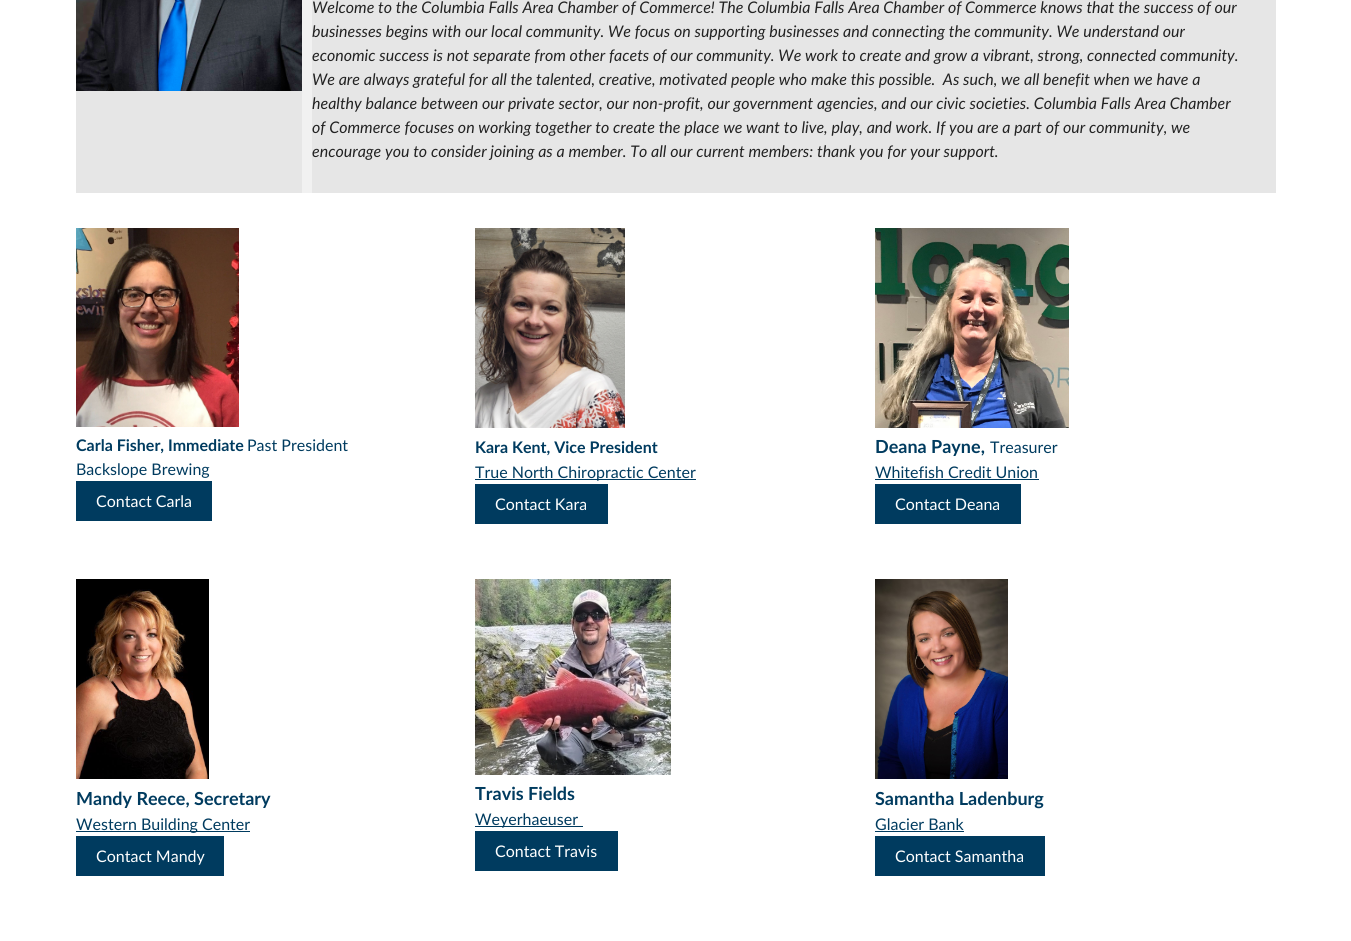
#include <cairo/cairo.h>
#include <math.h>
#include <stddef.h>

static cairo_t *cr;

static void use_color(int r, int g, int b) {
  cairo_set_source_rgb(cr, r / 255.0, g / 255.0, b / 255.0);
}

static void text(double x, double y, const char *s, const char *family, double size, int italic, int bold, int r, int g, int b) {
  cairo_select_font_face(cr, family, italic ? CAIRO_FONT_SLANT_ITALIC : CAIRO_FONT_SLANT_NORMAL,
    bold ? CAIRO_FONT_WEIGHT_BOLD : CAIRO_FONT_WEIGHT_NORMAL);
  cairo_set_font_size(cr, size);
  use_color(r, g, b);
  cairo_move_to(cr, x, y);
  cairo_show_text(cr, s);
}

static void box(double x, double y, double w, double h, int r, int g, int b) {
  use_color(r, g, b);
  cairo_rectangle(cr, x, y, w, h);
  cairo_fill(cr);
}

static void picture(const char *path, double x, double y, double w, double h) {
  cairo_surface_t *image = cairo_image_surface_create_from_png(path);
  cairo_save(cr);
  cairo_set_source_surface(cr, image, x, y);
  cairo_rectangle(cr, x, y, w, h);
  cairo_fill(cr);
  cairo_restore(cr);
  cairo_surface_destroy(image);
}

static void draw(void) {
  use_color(255, 255, 255);
  cairo_paint(cr);
  box(302, 0, 10, 193, 241, 241, 241);
  box(76, 91, 226, 102, 230, 230, 230);
  picture("img_01.png", 76, 0, 226, 91);
  box(312, 0, 964, 193, 230, 230, 230);
  picture("img_02.png", 76, 228, 163, 199);
  box(76, 481, 136, 40, 0, 59, 95);
  picture("img_03.png", 475, 228, 150, 200);
  box(475, 479, 221, 1, 0, 59, 95);
  box(475, 484, 133, 40, 0, 59, 95);
  picture("img_04.png", 875, 228, 194, 200);
  box(875, 479, 164, 1, 0, 59, 95);
  box(875, 484, 146, 40, 0, 59, 95);
  picture("img_05.png", 76, 579, 133, 200);
  box(76, 831, 174, 1, 0, 59, 95);
  box(76, 836, 148, 40, 0, 59, 95);
  picture("img_06.png", 475, 579, 196, 196);
  box(475, 826, 108, 1, 0, 59, 95);
  box(475, 831, 143, 40, 0, 59, 95);
  picture("img_07.png", 875, 579, 133, 200);
  box(875, 831, 89, 1, 0, 59, 95);
  box(875, 836, 170, 40, 0, 59, 95);
  text(312, 13, "Welcome to the Columbia Falls Area Chamber of Commerce! The Columbia Falls Area Chamber of Commerce knows that the success of our", "Lato", 16, 1, 0, 34, 34, 34);
  text(312, 37, "businesses begins with our local community. We focus on supporting businesses and connecting the community. We understand our", "Lato", 16, 1, 0, 34, 34, 34);
  text(312, 61, "economic success is not separate from other facets of our community. We work to create and grow a vibrant, strong, connected community.", "Lato", 16, 1, 0, 34, 34, 34);
  text(312, 85, "We are always grateful for all the talented, creative, motivated people who make this possible.  As such, we all benefit when we have a", "Lato", 16, 1, 0, 34, 34, 34);
  text(312, 109, "healthy balance between our private sector, our non-profit, our government agencies, and our civic societies. Columbia Falls Area Chamber", "Lato", 16, 1, 0, 34, 34, 34);
  text(312, 133, "of Commerce focuses on working together to create the place we want to live, play, and work. If you are a part of our community, we", "Lato", 16, 1, 0, 34, 34, 34);
  text(312, 157, "encourage you to consider joining as a member. To all our current members: thank you for your support.", "Lato", 16, 1, 0, 34, 34, 34);
  text(76, 451, "Carla Fisher, Immediate", "Lato", 16, 0, 1, 0, 59, 95);
  text(247, 451, "Past President", "Lato", 16, 0, 0, 0, 59, 95);
  text(76, 475, "Backslope Brewing", "Lato", 16, 0, 0, 0, 59, 95);
  text(96, 507, "Contact Carla", "Lato", 16, 0, 0, 255, 255, 255);
  text(475, 453, "Kara Kent, Vice President", "Lato", 16, 0, 1, 0, 59, 95);
  text(475, 478, "True North Chiropractic Center", "Lato", 16, 0, 0, 0, 59, 95);
  text(495, 510, "Contact Kara", "Lato", 16, 0, 0, 255, 255, 255);
  text(875, 453, "Deana Payne,", "Lato", 18, 0, 1, 0, 59, 95);
  text(990, 453, "Treasurer", "Lato", 16, 0, 0, 0, 59, 95);
  text(875, 478, "Whitefish Credit Union", "Lato", 16, 0, 0, 0, 59, 95);
  text(895, 510, "Contact Deana", "Lato", 16, 0, 0, 255, 255, 255);
  text(76, 805, "Mandy Reece, Secretary", "Lato", 18, 0, 1, 0, 59, 95);
  text(76, 830, "Western Building Center", "Lato", 16, 0, 0, 0, 59, 95);
  text(96, 862, "Contact Mandy", "Lato", 16, 0, 0, 255, 255, 255);
  text(475, 800, "Travis Fields", "Lato", 18, 0, 1, 0, 59, 95);
  text(475, 825, "Weyerhaeuser", "Lato", 16, 0, 0, 0, 59, 95);
  text(495, 857, "Contact Travis", "Lato", 16, 0, 0, 255, 255, 255);
  text(875, 805, "Samantha Ladenburg", "Lato", 18, 0, 1, 0, 59, 95);
  text(875, 830, "Glacier Bank", "Lato", 16, 0, 0, 0, 59, 95);
  text(895, 862, "Contact Samantha", "Lato", 16, 0, 0, 255, 255, 255);
}

int main(void) {
  cairo_surface_t *surface = cairo_image_surface_create(CAIRO_FORMAT_RGB24, 1351, 941);
  cr = cairo_create(surface);
  cairo_font_options_t *options = cairo_font_options_create();
  cairo_font_options_set_hint_metrics(options, CAIRO_HINT_METRICS_OFF);
  cairo_font_options_set_hint_style(options, CAIRO_HINT_STYLE_NONE);
  cairo_set_font_options(cr, options);
  cairo_set_miter_limit(cr, 4);
  draw();
  cairo_surface_write_to_png(surface, "out.png");
  cairo_font_options_destroy(options);
  cairo_destroy(cr);
  cairo_surface_destroy(surface);
  return 0;
}
